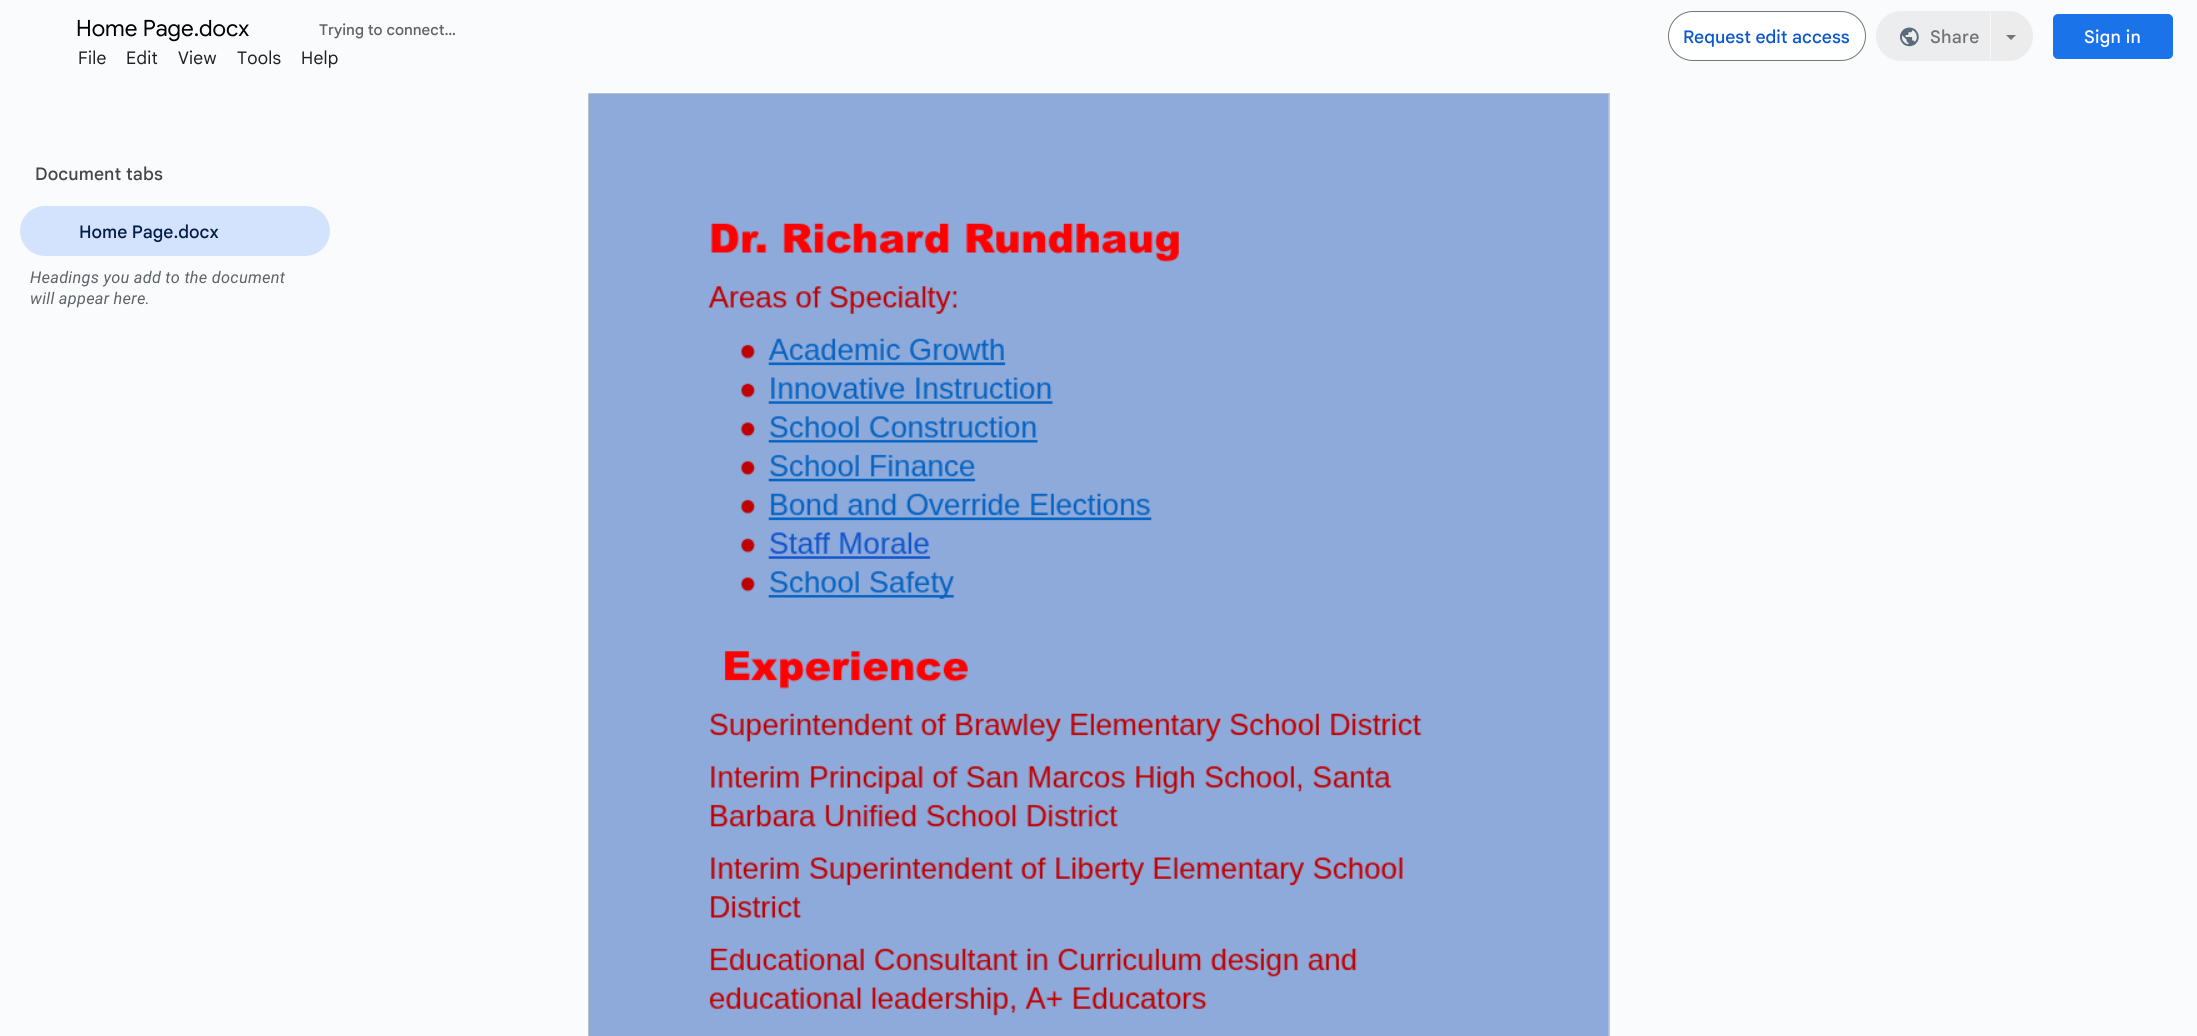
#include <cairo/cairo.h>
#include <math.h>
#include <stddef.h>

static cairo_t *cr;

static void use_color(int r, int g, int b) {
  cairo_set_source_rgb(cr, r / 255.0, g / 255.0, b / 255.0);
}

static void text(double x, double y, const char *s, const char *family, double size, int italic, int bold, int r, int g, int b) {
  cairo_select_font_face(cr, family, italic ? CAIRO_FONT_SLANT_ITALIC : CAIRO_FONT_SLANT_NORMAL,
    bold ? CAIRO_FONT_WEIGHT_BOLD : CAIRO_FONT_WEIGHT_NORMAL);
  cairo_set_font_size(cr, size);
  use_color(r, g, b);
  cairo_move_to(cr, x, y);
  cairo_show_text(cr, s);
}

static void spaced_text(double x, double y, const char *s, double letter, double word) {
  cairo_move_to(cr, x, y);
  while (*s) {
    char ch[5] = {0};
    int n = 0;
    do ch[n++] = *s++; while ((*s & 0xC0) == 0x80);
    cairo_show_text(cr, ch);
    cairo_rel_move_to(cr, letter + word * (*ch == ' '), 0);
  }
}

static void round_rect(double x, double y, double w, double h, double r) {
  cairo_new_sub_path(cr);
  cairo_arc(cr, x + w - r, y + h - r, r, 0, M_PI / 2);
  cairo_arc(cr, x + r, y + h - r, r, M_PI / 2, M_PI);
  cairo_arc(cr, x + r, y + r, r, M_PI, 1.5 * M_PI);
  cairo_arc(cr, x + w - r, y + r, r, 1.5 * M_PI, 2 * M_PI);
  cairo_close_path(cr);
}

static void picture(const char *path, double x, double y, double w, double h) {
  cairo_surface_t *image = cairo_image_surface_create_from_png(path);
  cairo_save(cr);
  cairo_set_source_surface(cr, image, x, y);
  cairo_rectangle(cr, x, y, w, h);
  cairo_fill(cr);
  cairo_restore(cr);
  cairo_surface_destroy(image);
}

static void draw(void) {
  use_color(249, 251, 253);
  cairo_paint(cr);
  use_color(255, 255, 255);
  round_rect(1668.5, 11.5, 197, 49, 24.5);
  cairo_fill_preserve(cr);
  use_color(116, 119, 117);
  cairo_set_line_width(cr, 1);
  cairo_stroke(cr);
  use_color(236, 237, 238);
  cairo_new_path(cr);
  cairo_move_to(cr, 1901, 11);
  cairo_line_to(cr, 1991, 11);
  cairo_line_to(cr, 1991, 61);
  cairo_line_to(cr, 1901, 61);
  cairo_curve_to(cr, 1887, 61, 1876, 50, 1876, 36);
  cairo_curve_to(cr, 1876, 22, 1887, 11, 1901, 11);
  cairo_close_path(cr);
  cairo_fill(cr);
  picture("img_01.png", 1900, 27, 19, 20);
  cairo_set_source_rgba(cr, 0.894, 0.894, 0.894, 0.62);
  cairo_new_path(cr);
  cairo_move_to(cr, 1990, 11);
  cairo_line_to(cr, 2008, 11);
  cairo_curve_to(cr, 2022, 11, 2033, 22, 2033, 36);
  cairo_curve_to(cr, 2033, 50, 2022, 61, 2008, 61);
  cairo_line_to(cr, 1990, 61);
  cairo_close_path(cr);
  cairo_fill(cr);
  use_color(248, 248, 249);
  cairo_new_path(cr);
  cairo_move_to(cr, 1990, 11);
  cairo_line_to(cr, 1990, 61);
  cairo_line_to(cr, 1991, 60);
  cairo_line_to(cr, 1991, 12);
  cairo_close_path(cr);
  cairo_fill(cr);
  use_color(114, 115, 115);
  cairo_new_path(cr);
  cairo_move_to(cr, 2006, 35);
  cairo_line_to(cr, 2016, 35);
  cairo_line_to(cr, 2011, 40);
  cairo_close_path(cr);
  cairo_fill(cr);
  use_color(26, 115, 232);
  round_rect(2053, 14, 120, 45, 5);
  cairo_fill(cr);
  use_color(211, 227, 253);
  round_rect(20, 206, 310, 50, 25);
  cairo_fill(cr);
  cairo_rectangle(cr, 588.5, 93.5, 1021, 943);
  use_color(199, 199, 199);
  cairo_stroke(cr);
  picture("img_02.png", 588, 93, 1021, 943);
  text(76, 36, "Home Page.docx", "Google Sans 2", 22.5, 0, 0, 0, 0, 0);
  text(319, 35, "Trying to connect…", "Google Sans Medium", 15, 0, 0, 95, 99, 104);
  text(1683, 43, "Request edit access", "Google Sans Medium", 17.5, 0, 0, 11, 87, 208);
  use_color(114, 115, 115);
  spaced_text(1930, 43, "Share", 0.25, 0);
  use_color(255, 255, 255);
  spaced_text(2084, 43, "Sign in", 0.25, 0);
  cairo_select_font_face(cr, "Google Sans", CAIRO_FONT_SLANT_NORMAL, CAIRO_FONT_WEIGHT_NORMAL);
  use_color(32, 33, 36);
  spaced_text(78, 64, "File", 0.25, 0);
  spaced_text(126, 64, "Edit", 0.25, 0);
  spaced_text(178, 64, "View", 0.25, 0);
  spaced_text(237, 64, "Tools", 0.25, 0);
  spaced_text(301, 64, "Help", 0.25, 0);
  cairo_select_font_face(cr, "Google Sans Medium", CAIRO_FONT_SLANT_NORMAL, CAIRO_FONT_WEIGHT_NORMAL);
  use_color(68, 71, 70);
  spaced_text(35, 180, "Document tabs", 0.1, 0);
  text(79, 238, "Home Page.docx", "Google Sans Medium", 17.5, 0, 0, 4, 30, 73);
  cairo_select_font_face(cr, "Roboto", CAIRO_FONT_SLANT_ITALIC, CAIRO_FONT_WEIGHT_NORMAL);
  cairo_set_font_size(cr, 16.25);
  use_color(95, 99, 104);
  spaced_text(30, 283, "Headings you add to the document", 0.25, 0);
  spaced_text(30, 304, "will appear here.", 0.25, 0);
}

int main(void) {
  cairo_surface_t *surface = cairo_image_surface_create(CAIRO_FORMAT_RGB24, 2197, 1036);
  cr = cairo_create(surface);
  cairo_font_options_t *options = cairo_font_options_create();
  cairo_font_options_set_hint_metrics(options, CAIRO_HINT_METRICS_OFF);
  cairo_font_options_set_hint_style(options, CAIRO_HINT_STYLE_NONE);
  cairo_set_font_options(cr, options);
  cairo_set_miter_limit(cr, 4);
  draw();
  cairo_surface_write_to_png(surface, "out.png");
  cairo_font_options_destroy(options);
  cairo_destroy(cr);
  cairo_surface_destroy(surface);
  return 0;
}
